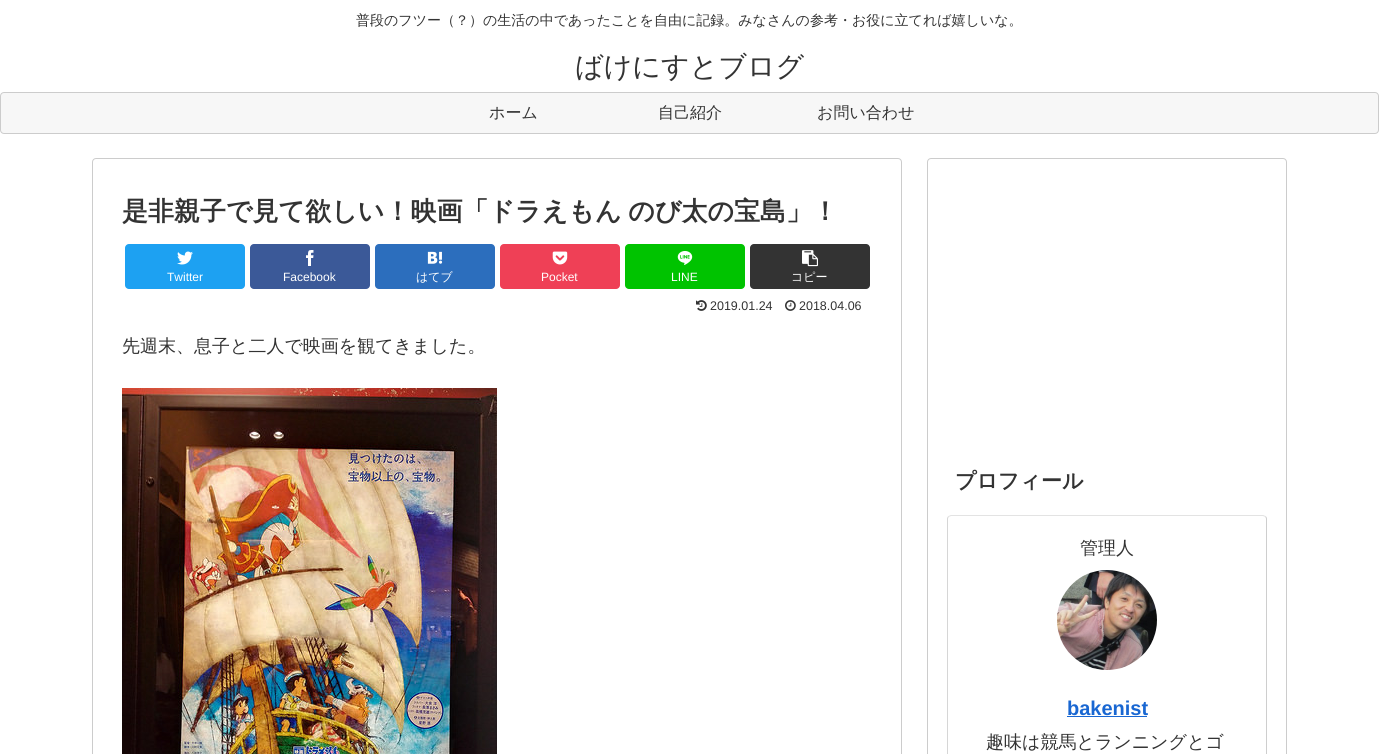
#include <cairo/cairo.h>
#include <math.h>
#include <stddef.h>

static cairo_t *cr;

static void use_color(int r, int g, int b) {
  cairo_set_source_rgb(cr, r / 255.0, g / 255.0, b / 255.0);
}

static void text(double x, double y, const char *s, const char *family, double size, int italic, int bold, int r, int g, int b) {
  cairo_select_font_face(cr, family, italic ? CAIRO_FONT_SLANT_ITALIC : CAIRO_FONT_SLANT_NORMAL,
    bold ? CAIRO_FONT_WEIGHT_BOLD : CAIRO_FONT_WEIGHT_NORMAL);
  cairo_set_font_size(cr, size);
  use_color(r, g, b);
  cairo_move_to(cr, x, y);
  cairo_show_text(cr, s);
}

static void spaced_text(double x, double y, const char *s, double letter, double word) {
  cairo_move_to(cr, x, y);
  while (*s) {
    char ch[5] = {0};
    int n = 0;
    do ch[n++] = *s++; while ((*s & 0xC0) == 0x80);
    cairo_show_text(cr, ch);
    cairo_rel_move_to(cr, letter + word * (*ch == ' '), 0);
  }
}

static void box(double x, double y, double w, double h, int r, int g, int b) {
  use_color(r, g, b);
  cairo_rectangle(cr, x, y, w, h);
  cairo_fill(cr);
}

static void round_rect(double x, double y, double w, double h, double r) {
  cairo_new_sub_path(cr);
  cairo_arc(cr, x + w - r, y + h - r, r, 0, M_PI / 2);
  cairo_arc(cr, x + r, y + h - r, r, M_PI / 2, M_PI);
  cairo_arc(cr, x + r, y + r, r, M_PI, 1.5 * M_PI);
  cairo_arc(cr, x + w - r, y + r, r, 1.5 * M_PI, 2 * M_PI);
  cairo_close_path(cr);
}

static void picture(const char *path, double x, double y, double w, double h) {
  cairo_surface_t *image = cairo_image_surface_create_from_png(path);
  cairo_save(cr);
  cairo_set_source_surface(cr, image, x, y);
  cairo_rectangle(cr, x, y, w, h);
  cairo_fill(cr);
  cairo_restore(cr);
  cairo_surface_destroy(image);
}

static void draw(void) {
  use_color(255, 255, 255);
  cairo_paint(cr);
  use_color(247, 247, 247);
  round_rect(0.5, 92.5, 1378, 41, 3.5);
  cairo_fill_preserve(cr);
  use_color(204, 204, 204);
  cairo_set_line_width(cr, 1);
  cairo_stroke(cr);
  round_rect(92.5, 158.5, 809, 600, 3.5);
  cairo_stroke(cr);
  use_color(29, 161, 242);
  round_rect(125, 244, 120, 45, 4);
  cairo_fill(cr);
  picture("img_01.png", 177, 251, 16, 14);
  use_color(59, 89, 152);
  round_rect(250, 244, 120, 45, 4);
  cairo_fill(cr);
  picture("img_02.png", 306, 250, 8, 16);
  use_color(44, 110, 189);
  round_rect(375, 244, 120, 45, 4);
  cairo_fill(cr);
  picture("img_03.png", 427, 251, 16, 13);
  use_color(239, 64, 86);
  round_rect(500, 244, 120, 45, 4);
  cairo_fill(cr);
  picture("img_04.png", 552, 251, 16, 14);
  use_color(0, 195, 0);
  round_rect(625, 244, 120, 45, 4);
  cairo_fill(cr);
  picture("img_05.png", 677, 251, 16, 14);
  use_color(51, 51, 51);
  round_rect(750, 244, 120, 45, 4);
  cairo_fill(cr);
  picture("img_06.png", 802, 250, 16, 17);
  picture("img_07.png", 696, 300, 11, 11);
  picture("img_08.png", 785, 300, 11, 11);
  picture("img_09.png", 122, 388, 375, 366);
  round_rect(927.5, 158.5, 359, 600, 3.5);
  use_color(204, 204, 204);
  cairo_stroke(cr);
  cairo_new_path(cr);
  cairo_move_to(cr, 948.5, 516.5);
  cairo_line_to(cr, 951, 515.5);
  cairo_line_to(cr, 1263, 515.5);
  cairo_line_to(cr, 1265.5, 516.5);
  use_color(227, 227, 227);
  cairo_stroke(cr);
  cairo_new_path(cr);
  cairo_move_to(cr, 1265.5, 516.5);
  cairo_curve_to(cr, 1266, 517, 1266.5, 518, 1266.5, 519);
  cairo_line_to(cr, 1266.5, 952);
  cairo_curve_to(cr, 1266.5, 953, 1266, 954, 1265.5, 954.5);
  use_color(206, 206, 206);
  cairo_stroke(cr);
  cairo_new_path(cr);
  cairo_move_to(cr, 948.5, 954.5);
  cairo_curve_to(cr, 948, 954, 947.5, 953, 947.5, 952);
  cairo_line_to(cr, 947.5, 519);
  cairo_curve_to(cr, 947.5, 518, 948, 517, 948.5, 516.5);
  use_color(214, 214, 214);
  cairo_stroke(cr);
  picture("img_10.png", 1057, 570, 100, 100);
  box(1067, 716, 80, 1, 25, 103, 210);
  text(356, 25, "普段のフツー（？）の生活の中であったことを自由に記録。みなさんの参考・お役に立てれば嬉しいな。", "WenQuanYi Zen Hei Medium", 14, 0, 0, 51, 51, 51);
  text(575, 76, "ばけにすとブログ", "WenQuanYi Zen Hei Medium", 28, 0, 0, 51, 51, 51);
  text(489, 118, "ホーム", "WenQuanYi Zen Hei Medium", 16, 0, 0, 51, 51, 51);
  text(658, 118, "自己紹介", "WenQuanYi Zen Hei Medium", 16, 0, 0, 51, 51, 51);
  text(817, 118, "お問い合わせ", "WenQuanYi Zen Hei Medium", 16, 0, 0, 51, 51, 51);
  cairo_select_font_face(cr, "WenQuanYi Zen Hei", CAIRO_FONT_SLANT_NORMAL, CAIRO_FONT_WEIGHT_BOLD);
  cairo_set_font_size(cr, 26);
  spaced_text(122, 220, "是非親子で見て欲しい！映画「ドラえもん のび太の宝島」！", 0, -1);
  text(167, 281, "Twitter", "Liberation Sans", 12, 0, 0, 255, 255, 255);
  text(283, 281, "Facebook", "Liberation Sans", 12, 0, 0, 255, 255, 255);
  text(416, 281, "はてブ", "WenQuanYi Zen Hei Medium", 12, 0, 0, 255, 255, 255);
  text(541, 281, "Pocket", "Liberation Sans", 12, 0, 0, 255, 255, 255);
  text(671, 281, "LINE", "Liberation Sans", 12, 0, 0, 255, 255, 255);
  text(791, 281, "コピー", "WenQuanYi Zen Hei Medium", 12, 0, 0, 255, 255, 255);
  text(710, 310, "2019.01.24", "Liberation Sans", 12.5, 0, 0, 51, 51, 51);
  text(799, 310, "2018.04.06", "Liberation Sans", 12.5, 0, 0, 51, 51, 51);
  text(122, 352, "先週末、息子と二人で映画を観てきました。", "WenQuanYi Zen Hei Medium", 18, 0, 0, 51, 51, 51);
  text(955, 488, "プロフィール", "WenQuanYi Zen Hei", 21, 0, 1, 51, 51, 51);
  text(1080, 554, "管理人", "WenQuanYi Zen Hei Medium", 18, 0, 0, 51, 51, 51);
  text(1067, 715, "bakenist", "Liberation Sans", 20, 0, 1, 25, 103, 210);
  text(986, 748, "趣味は競馬とランニングとゴ", "WenQuanYi Zen Hei Medium", 18, 0, 0, 51, 51, 51);
}

int main(void) {
  cairo_surface_t *surface = cairo_image_surface_create(CAIRO_FORMAT_RGB24, 1379, 754);
  cr = cairo_create(surface);
  cairo_font_options_t *options = cairo_font_options_create();
  cairo_font_options_set_hint_metrics(options, CAIRO_HINT_METRICS_OFF);
  cairo_font_options_set_hint_style(options, CAIRO_HINT_STYLE_NONE);
  cairo_set_font_options(cr, options);
  cairo_set_miter_limit(cr, 4);
  draw();
  cairo_surface_write_to_png(surface, "out.png");
  cairo_font_options_destroy(options);
  cairo_destroy(cr);
  cairo_surface_destroy(surface);
  return 0;
}
